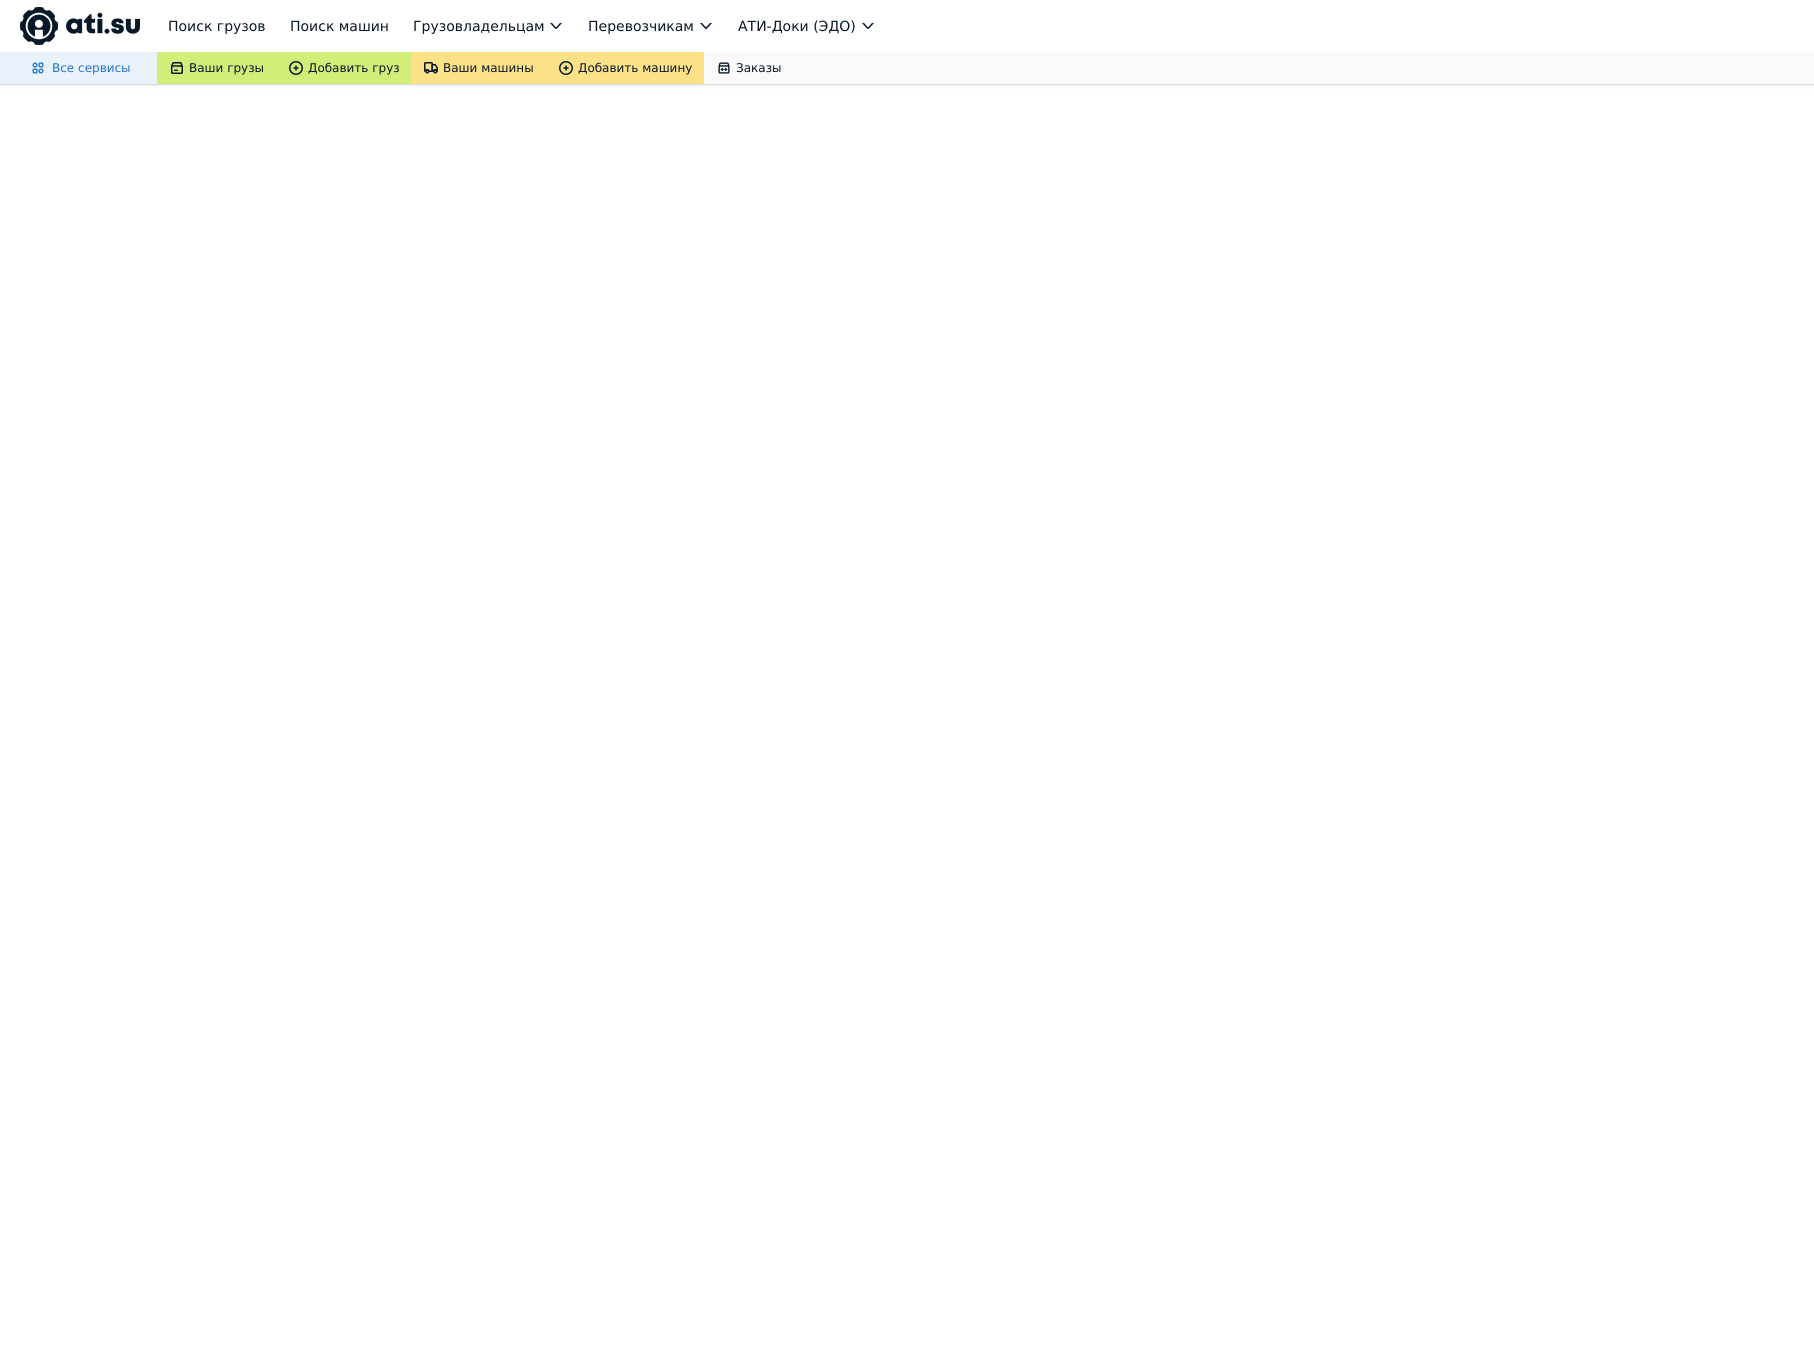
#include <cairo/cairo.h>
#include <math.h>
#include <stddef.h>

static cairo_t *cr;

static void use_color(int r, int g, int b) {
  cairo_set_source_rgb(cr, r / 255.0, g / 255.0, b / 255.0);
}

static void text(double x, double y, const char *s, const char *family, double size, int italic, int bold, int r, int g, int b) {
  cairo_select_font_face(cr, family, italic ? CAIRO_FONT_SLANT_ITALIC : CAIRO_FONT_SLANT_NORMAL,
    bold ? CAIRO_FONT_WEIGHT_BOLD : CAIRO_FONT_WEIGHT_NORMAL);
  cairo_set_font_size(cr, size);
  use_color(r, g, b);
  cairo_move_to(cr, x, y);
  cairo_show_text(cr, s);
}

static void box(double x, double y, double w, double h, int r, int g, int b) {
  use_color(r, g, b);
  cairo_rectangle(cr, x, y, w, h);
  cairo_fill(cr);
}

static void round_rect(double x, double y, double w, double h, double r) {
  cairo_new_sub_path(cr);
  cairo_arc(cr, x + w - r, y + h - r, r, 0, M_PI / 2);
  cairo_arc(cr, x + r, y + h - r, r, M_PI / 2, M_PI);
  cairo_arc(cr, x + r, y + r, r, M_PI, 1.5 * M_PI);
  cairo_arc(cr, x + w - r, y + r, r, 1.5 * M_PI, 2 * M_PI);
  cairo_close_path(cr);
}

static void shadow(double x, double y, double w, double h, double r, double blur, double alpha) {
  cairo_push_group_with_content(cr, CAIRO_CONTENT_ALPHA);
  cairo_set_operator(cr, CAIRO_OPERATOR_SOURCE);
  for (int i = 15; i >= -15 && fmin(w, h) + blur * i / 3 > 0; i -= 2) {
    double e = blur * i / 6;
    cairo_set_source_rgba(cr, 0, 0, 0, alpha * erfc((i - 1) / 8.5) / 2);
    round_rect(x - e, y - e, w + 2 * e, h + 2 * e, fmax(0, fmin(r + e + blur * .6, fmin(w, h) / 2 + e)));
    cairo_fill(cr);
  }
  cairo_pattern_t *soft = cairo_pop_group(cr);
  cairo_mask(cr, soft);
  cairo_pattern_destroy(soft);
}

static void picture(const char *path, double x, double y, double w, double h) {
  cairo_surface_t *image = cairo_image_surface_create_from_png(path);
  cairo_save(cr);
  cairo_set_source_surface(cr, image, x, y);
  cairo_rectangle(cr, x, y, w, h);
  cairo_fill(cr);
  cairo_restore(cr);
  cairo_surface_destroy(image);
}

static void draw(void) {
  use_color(255, 255, 255);
  cairo_paint(cr);
  picture("img_01.png", 20, 7, 120, 38);
  picture("img_02.png", 550, 23, 12, 6);
  picture("img_02.png", 700, 23, 12, 6);
  picture("img_02.png", 862, 23, 12, 6);
  box(0, 84, 1814, 1, 230, 232, 234);
  use_color(7, 24, 41);
  shadow(0, 54, 1814, 32, 0, 2, 0.08);
  box(704, 52, 1110, 32, 249, 249, 250);
  box(0, 52, 157, 32, 233, 241, 250);
  picture("img_03.png", 32, 62, 12, 12);
  box(157, 52, 254, 32, 211, 238, 120);
  picture("img_04.png", 171, 62, 12, 12);
  picture("img_05.png", 289, 61, 14, 14);
  box(411, 52, 293, 32, 253, 225, 134);
  picture("img_06.png", 424, 62, 14, 12);
  picture("img_07.png", 559, 61, 14, 14);
  picture("img_08.png", 718, 62, 12, 12);
  text(168, 31, "Поиск грузов", "DejaVu Sans", 14, 0, 0, 7, 24, 41);
  text(290, 31, "Поиск машин", "DejaVu Sans", 14, 0, 0, 7, 24, 41);
  text(413, 31, "Грузовладельцам", "DejaVu Sans", 14, 0, 0, 7, 24, 41);
  text(588, 31, "Перевозчикам", "DejaVu Sans", 14, 0, 0, 7, 24, 41);
  text(738, 31, "АТИ-Доки (ЭДО)", "DejaVu Sans", 14, 0, 0, 7, 24, 41);
  text(52, 72, "Все сервисы", "DejaVu Sans", 12, 0, 0, 34, 119, 204);
  text(189, 72, "Ваши грузы", "DejaVu Sans", 12, 0, 0, 7, 24, 41);
  text(308, 72, "Добавить груз", "DejaVu Sans", 12, 0, 0, 7, 24, 41);
  text(443, 72, "Ваши машины", "DejaVu Sans", 12, 0, 0, 7, 24, 41);
  text(578, 72, "Добавить машину", "DejaVu Sans", 12, 0, 0, 7, 24, 41);
  text(736, 72, "Заказы", "DejaVu Sans", 12, 0, 0, 7, 24, 41);
}

int main(void) {
  cairo_surface_t *surface = cairo_image_surface_create(CAIRO_FORMAT_RGB24, 1814, 1353);
  cr = cairo_create(surface);
  cairo_font_options_t *options = cairo_font_options_create();
  cairo_font_options_set_hint_metrics(options, CAIRO_HINT_METRICS_OFF);
  cairo_font_options_set_hint_style(options, CAIRO_HINT_STYLE_NONE);
  cairo_set_font_options(cr, options);
  cairo_set_miter_limit(cr, 4);
  draw();
  cairo_surface_write_to_png(surface, "out.png");
  cairo_font_options_destroy(options);
  cairo_destroy(cr);
  cairo_surface_destroy(surface);
  return 0;
}
